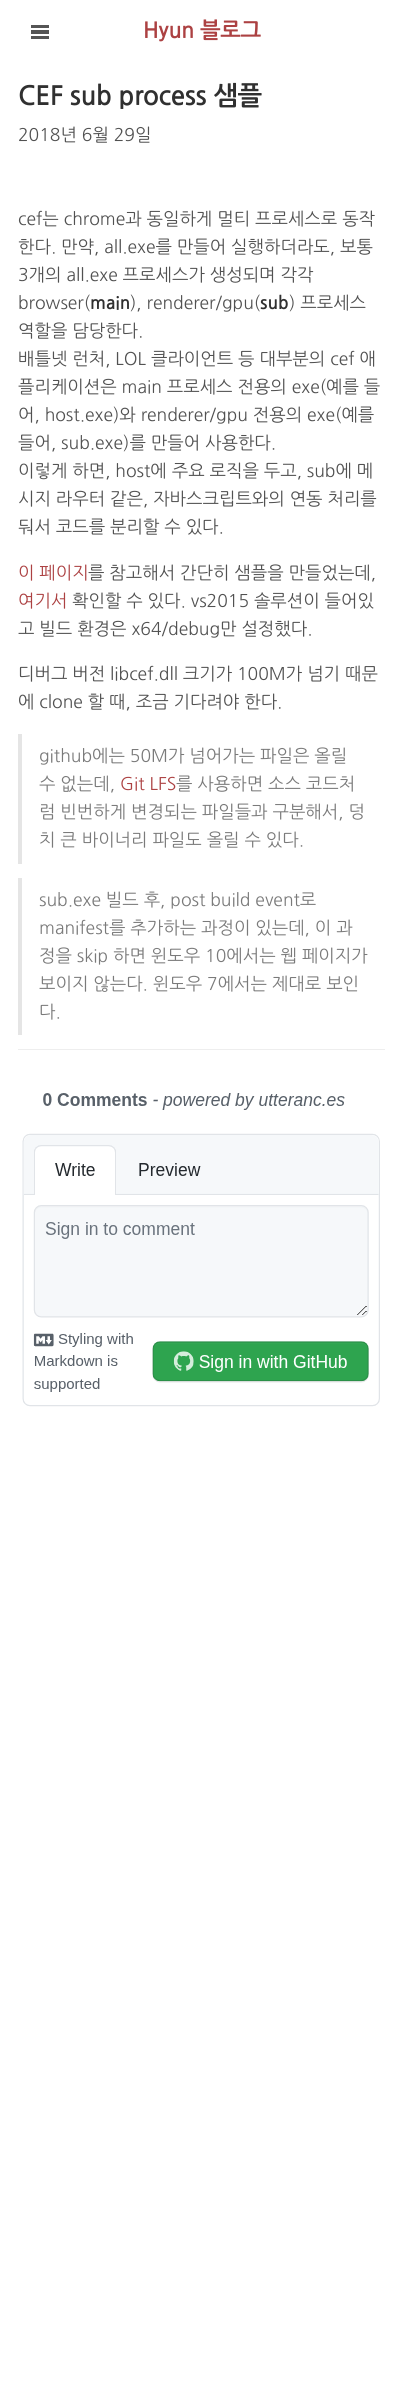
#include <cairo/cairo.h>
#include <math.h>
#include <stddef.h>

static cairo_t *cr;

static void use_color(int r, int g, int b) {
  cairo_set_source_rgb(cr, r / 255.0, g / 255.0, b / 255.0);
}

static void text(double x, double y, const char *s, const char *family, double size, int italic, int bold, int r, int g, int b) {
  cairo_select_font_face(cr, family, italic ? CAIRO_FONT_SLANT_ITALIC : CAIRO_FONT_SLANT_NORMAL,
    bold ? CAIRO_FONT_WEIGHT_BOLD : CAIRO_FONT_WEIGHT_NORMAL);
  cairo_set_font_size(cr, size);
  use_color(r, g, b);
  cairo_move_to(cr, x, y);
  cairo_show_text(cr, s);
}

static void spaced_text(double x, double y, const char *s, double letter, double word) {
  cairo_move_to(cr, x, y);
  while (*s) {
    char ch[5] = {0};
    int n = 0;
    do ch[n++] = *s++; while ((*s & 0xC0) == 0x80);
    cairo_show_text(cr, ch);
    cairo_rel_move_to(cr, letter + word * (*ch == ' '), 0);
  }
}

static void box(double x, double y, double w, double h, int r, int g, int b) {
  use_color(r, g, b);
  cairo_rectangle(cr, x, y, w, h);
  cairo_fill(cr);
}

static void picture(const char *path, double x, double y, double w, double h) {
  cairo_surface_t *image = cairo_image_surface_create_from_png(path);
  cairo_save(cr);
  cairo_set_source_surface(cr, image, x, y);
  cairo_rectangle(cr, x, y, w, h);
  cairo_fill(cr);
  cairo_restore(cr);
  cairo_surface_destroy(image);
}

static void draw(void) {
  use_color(255, 255, 255);
  cairo_paint(cr);
  box(18, 1049, 367, 1, 238, 238, 238);
  box(18, 734, 4, 130, 229, 229, 229);
  box(18, 878, 4, 157, 229, 229, 229);
  picture("img_01.png", 22, 1093, 358, 314);
  picture("img_02.png", 31, 25, 18, 14);
  cairo_select_font_face(cr, "NanumGothic", CAIRO_FONT_SLANT_NORMAL, CAIRO_FONT_WEIGHT_BOLD);
  cairo_set_font_size(cr, 22);
  use_color(172, 65, 66);
  spaced_text(143, 38, "Hyun 블로그", -0.4, 0);
  cairo_set_font_size(cr, 26.25);
  use_color(48, 48, 48);
  spaced_text(18, 105, "CEF sub process 샘플", -0.4, 0);
  text(18, 141, "2018년 6월 29일", "NanumGothic", 17.5, 0, 0, 81, 81, 81);
  text(18, 225, "cef는 chrome과 동일하게 멀티 프로세스로 동작", "NanumGothic", 17.5, 0, 0, 81, 81, 81);
  text(18, 253, "한다. 만약, all.exe를 만들어 실행하더라도, 보통", "NanumGothic", 17.5, 0, 0, 81, 81, 81);
  text(18, 281, "3개의 all.exe 프로세스가 생성되며 각각", "NanumGothic", 17.5, 0, 0, 81, 81, 81);
  text(18, 309, "browser(", "NanumGothic", 17.5, 0, 0, 81, 81, 81);
  text(90, 309, "main", "NanumGothic", 17.5, 0, 1, 48, 48, 48);
  text(130, 309, "), renderer/gpu(", "NanumGothic", 17.5, 0, 0, 81, 81, 81);
  text(260, 309, "sub", "NanumGothic", 17.5, 0, 1, 48, 48, 48);
  text(289, 309, ") 프로세스", "NanumGothic", 17.5, 0, 0, 81, 81, 81);
  text(18, 337, "역할을 담당한다.", "NanumGothic", 17.5, 0, 0, 81, 81, 81);
  text(18, 365, "배틀넷 런처, LOL 클라이언트 등 대부분의 cef 애", "NanumGothic", 17.5, 0, 0, 81, 81, 81);
  text(18, 393, "플리케이션은 main 프로세스 전용의 exe(예를 들", "NanumGothic", 17.5, 0, 0, 81, 81, 81);
  text(18, 421, "어, host.exe)와 renderer/gpu 전용의 exe(예를", "NanumGothic", 17.5, 0, 0, 81, 81, 81);
  text(18, 449, "들어, sub.exe)를 만들어 사용한다.", "NanumGothic", 17.5, 0, 0, 81, 81, 81);
  text(18, 477, "이렇게 하면, host에 주요 로직을 두고, sub에 메", "NanumGothic", 17.5, 0, 0, 81, 81, 81);
  text(18, 505, "시지 라우터 같은, 자바스크립트와의 연동 처리를", "NanumGothic", 17.5, 0, 0, 81, 81, 81);
  text(18, 533, "둬서 코드를 분리할 수 있다.", "NanumGothic", 17.5, 0, 0, 81, 81, 81);
  text(18, 579, "이 페이지", "NanumGothic", 17.5, 0, 0, 172, 65, 66);
  text(88, 579, "를 참고해서 간단히 샘플을 만들었는데,", "NanumGothic", 17.5, 0, 0, 81, 81, 81);
  text(18, 607, "여기서", "NanumGothic", 17.5, 0, 0, 172, 65, 66);
  text(72, 607, "확인할 수 있다. vs2015 솔루션이 들어있", "NanumGothic", 17.5, 0, 0, 81, 81, 81);
  text(18, 635, "고 빌드 환경은 x64/debug만 설정했다.", "NanumGothic", 17.5, 0, 0, 81, 81, 81);
  text(18, 680, "디버그 버전 libcef.dll 크기가 100M가 넘기 때문", "NanumGothic", 17.5, 0, 0, 81, 81, 81);
  text(18, 708, "에 clone 할 때, 조금 기다려야 한다.", "NanumGothic", 17.5, 0, 0, 81, 81, 81);
  text(39, 762, "github에는 50M가 넘어가는 파일은 올릴", "NanumGothic", 17.5, 0, 0, 122, 122, 122);
  text(39, 790, "수 없는데,", "NanumGothic", 17.5, 0, 0, 122, 122, 122);
  text(120, 790, "Git LFS", "NanumGothic", 17.5, 0, 0, 172, 65, 66);
  text(176, 790, "를 사용하면 소스 코드처", "NanumGothic", 17.5, 0, 0, 122, 122, 122);
  text(39, 818, "럼 빈번하게 변경되는 파일들과 구분해서, 덩", "NanumGothic", 17.5, 0, 0, 122, 122, 122);
  text(39, 846, "치 큰 바이너리 파일도 올릴 수 있다.", "NanumGothic", 17.5, 0, 0, 122, 122, 122);
  text(39, 906, "sub.exe 빌드 후, post build event로", "NanumGothic", 17.5, 0, 0, 122, 122, 122);
  text(39, 934, "manifest를 추가하는 과정이 있는데, 이 과", "NanumGothic", 17.5, 0, 0, 122, 122, 122);
  text(39, 962, "정을 skip 하면 윈도우 10에서는 웹 페이지가", "NanumGothic", 17.5, 0, 0, 122, 122, 122);
  text(39, 990, "보이지 않는다. 윈도우 7에서는 제대로 보인", "NanumGothic", 17.5, 0, 0, 122, 122, 122);
  text(39, 1018, "다.", "NanumGothic", 17.5, 0, 0, 122, 122, 122);
}

int main(void) {
  cairo_surface_t *surface = cairo_image_surface_create(CAIRO_FORMAT_RGB24, 402, 2398);
  cr = cairo_create(surface);
  cairo_font_options_t *options = cairo_font_options_create();
  cairo_font_options_set_hint_metrics(options, CAIRO_HINT_METRICS_OFF);
  cairo_font_options_set_hint_style(options, CAIRO_HINT_STYLE_NONE);
  cairo_set_font_options(cr, options);
  cairo_set_miter_limit(cr, 4);
  draw();
  cairo_surface_write_to_png(surface, "out.png");
  cairo_font_options_destroy(options);
  cairo_destroy(cr);
  cairo_surface_destroy(surface);
  return 0;
}
